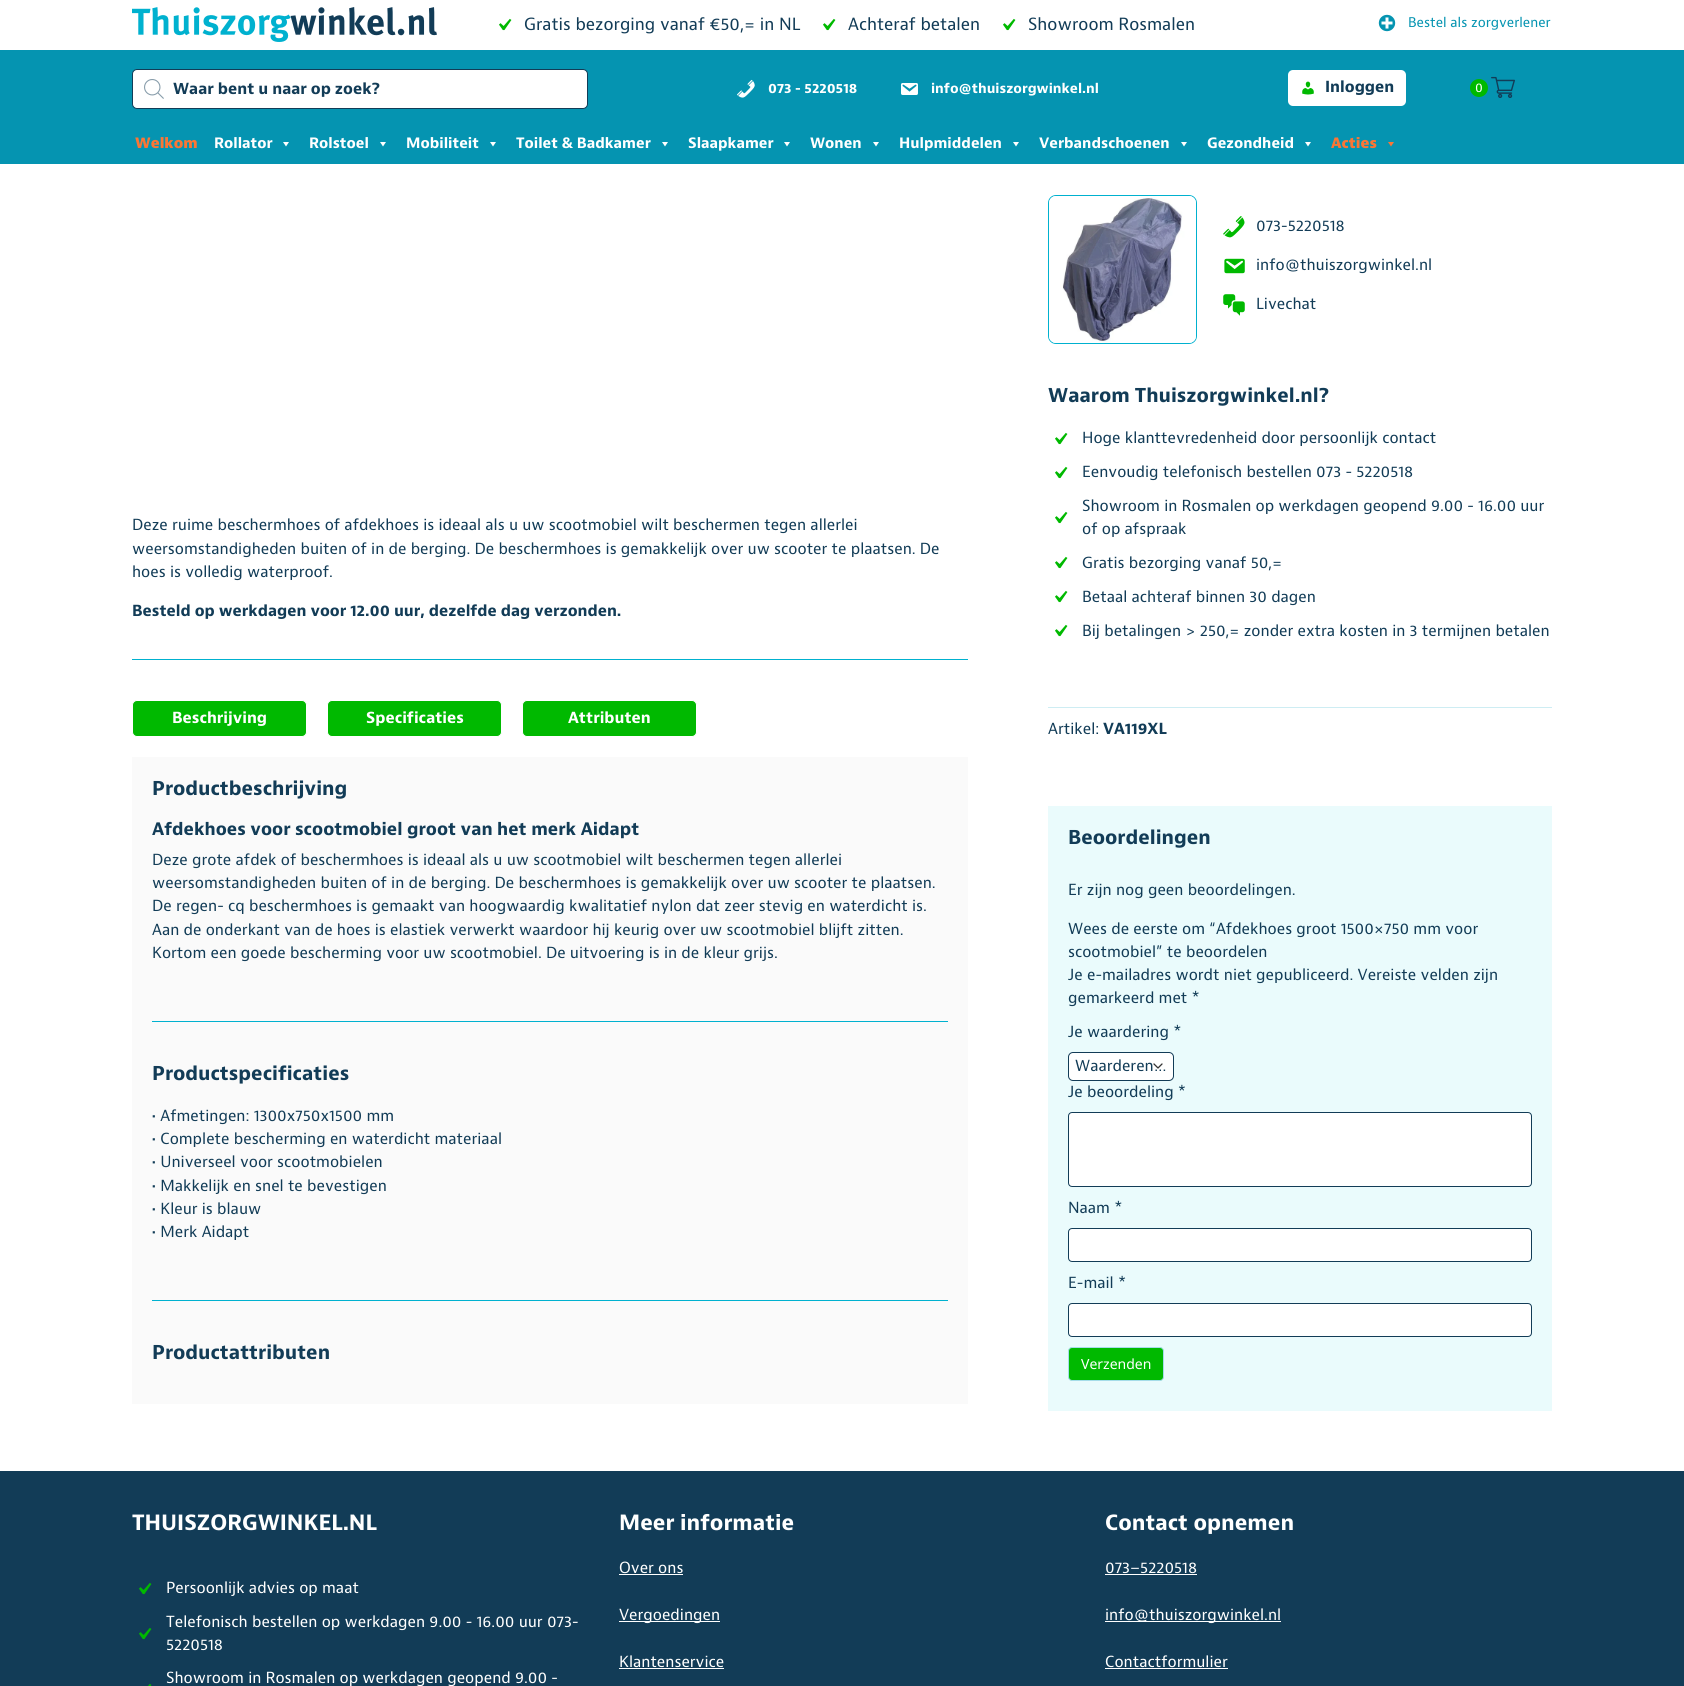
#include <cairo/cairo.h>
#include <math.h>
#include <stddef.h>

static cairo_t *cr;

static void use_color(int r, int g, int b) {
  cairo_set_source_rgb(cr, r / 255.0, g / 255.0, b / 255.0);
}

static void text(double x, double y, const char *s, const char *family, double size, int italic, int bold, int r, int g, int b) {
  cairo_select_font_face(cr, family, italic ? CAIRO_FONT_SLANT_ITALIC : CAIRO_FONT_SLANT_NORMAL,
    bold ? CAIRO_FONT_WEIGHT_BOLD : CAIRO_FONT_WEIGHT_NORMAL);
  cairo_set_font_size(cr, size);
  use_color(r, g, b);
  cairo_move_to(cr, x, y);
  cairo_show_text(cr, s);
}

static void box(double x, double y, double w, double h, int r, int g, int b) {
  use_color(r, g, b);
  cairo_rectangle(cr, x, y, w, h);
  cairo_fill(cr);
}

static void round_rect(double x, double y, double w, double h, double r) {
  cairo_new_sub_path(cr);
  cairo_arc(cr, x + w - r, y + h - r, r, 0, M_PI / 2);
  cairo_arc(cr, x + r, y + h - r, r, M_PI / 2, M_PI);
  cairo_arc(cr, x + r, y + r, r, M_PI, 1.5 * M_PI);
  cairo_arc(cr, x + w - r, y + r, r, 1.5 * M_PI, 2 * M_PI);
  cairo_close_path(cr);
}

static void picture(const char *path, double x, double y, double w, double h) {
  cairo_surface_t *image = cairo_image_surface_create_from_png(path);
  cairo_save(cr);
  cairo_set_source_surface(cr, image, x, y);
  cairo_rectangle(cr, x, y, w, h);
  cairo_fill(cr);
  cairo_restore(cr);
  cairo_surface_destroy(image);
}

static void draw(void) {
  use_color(255, 255, 255);
  cairo_paint(cr);
  picture("img_01.png", 132, 7, 305, 35);
  picture("img_02.png", 499, 18, 13, 13);
  picture("img_02.png", 823, 18, 13, 13);
  picture("img_02.png", 1003, 18, 13, 13);
  picture("img_03.png", 1378, 14, 18, 18);
  box(0, 50, 1684, 114, 5, 148, 177);
  use_color(255, 255, 255);
  round_rect(132.5, 69.5, 455, 39, 4.5);
  cairo_fill_preserve(cr);
  use_color(18, 60, 87);
  cairo_set_line_width(cr, 1);
  cairo_stroke(cr);
  picture("img_04.png", 144, 79, 20, 20);
  picture("img_05.png", 737, 79, 18, 19);
  picture("img_06.png", 901, 83, 17, 12);
  use_color(255, 255, 255);
  round_rect(1288, 70, 118, 36, 5);
  cairo_fill(cr);
  picture("img_07.png", 1302, 81, 12, 14);
  use_color(0, 185, 0);
  cairo_arc(cr, 1479, 88, 9, 0, 2 * M_PI);
  cairo_fill(cr);
  picture("img_08.png", 1491, 76, 24, 22);
  use_color(255, 255, 255);
  cairo_new_path(cr);
  cairo_move_to(cr, 289, 142);
  cairo_line_to(cr, 286, 146.5);
  cairo_line_to(cr, 283, 142);
  cairo_close_path(cr);
  cairo_fill(cr);
  cairo_new_path(cr);
  cairo_move_to(cr, 386, 142);
  cairo_line_to(cr, 383, 146.5);
  cairo_line_to(cr, 380, 142);
  cairo_close_path(cr);
  cairo_fill(cr);
  cairo_new_path(cr);
  cairo_move_to(cr, 496, 142);
  cairo_line_to(cr, 493, 146.5);
  cairo_line_to(cr, 490, 142);
  cairo_close_path(cr);
  cairo_fill(cr);
  cairo_new_path(cr);
  cairo_move_to(cr, 668, 142);
  cairo_line_to(cr, 665, 146.5);
  cairo_line_to(cr, 662, 142);
  cairo_close_path(cr);
  cairo_fill(cr);
  cairo_new_path(cr);
  cairo_move_to(cr, 790, 142);
  cairo_line_to(cr, 787, 146.5);
  cairo_line_to(cr, 784, 142);
  cairo_close_path(cr);
  cairo_fill(cr);
  cairo_new_path(cr);
  cairo_move_to(cr, 879, 142);
  cairo_line_to(cr, 876, 146.5);
  cairo_line_to(cr, 873, 142);
  cairo_close_path(cr);
  cairo_fill(cr);
  cairo_new_path(cr);
  cairo_move_to(cr, 1019, 142);
  cairo_line_to(cr, 1016, 146.5);
  cairo_line_to(cr, 1013, 142);
  cairo_close_path(cr);
  cairo_fill(cr);
  cairo_new_path(cr);
  cairo_move_to(cr, 1187, 142);
  cairo_line_to(cr, 1184, 146.5);
  cairo_line_to(cr, 1181, 142);
  cairo_close_path(cr);
  cairo_fill(cr);
  cairo_new_path(cr);
  cairo_move_to(cr, 1311, 142);
  cairo_line_to(cr, 1308, 146.5);
  cairo_line_to(cr, 1305, 142);
  cairo_close_path(cr);
  cairo_fill(cr);
  use_color(251, 118, 53);
  cairo_new_path(cr);
  cairo_move_to(cr, 1394, 142);
  cairo_line_to(cr, 1391, 146.5);
  cairo_line_to(cr, 1388, 142);
  cairo_close_path(cr);
  cairo_fill(cr);
  box(132, 659, 836, 1, 0, 177, 207);
  use_color(0, 185, 0);
  round_rect(132.5, 700.5, 174, 36, 4.5);
  cairo_fill_preserve(cr);
  use_color(255, 255, 255);
  cairo_stroke(cr);
  use_color(0, 185, 0);
  round_rect(327.5, 700.5, 174, 36, 4.5);
  cairo_fill_preserve(cr);
  use_color(255, 255, 255);
  cairo_stroke(cr);
  use_color(0, 185, 0);
  round_rect(522.5, 700.5, 174, 36, 4.5);
  cairo_fill_preserve(cr);
  use_color(255, 255, 255);
  cairo_stroke(cr);
  box(132, 757, 836, 647, 250, 250, 250);
  box(152, 1021, 796, 1, 0, 177, 207);
  box(152, 1300, 796, 1, 0, 177, 207);
  round_rect(1048.5, 195.5, 148, 148, 7.5);
  cairo_stroke(cr);
  picture("img_09.png", 1049, 196, 147, 147);
  picture("img_10.png", 1223, 216, 22, 22);
  picture("img_11.png", 1224, 258, 21, 16);
  picture("img_12.png", 1223, 294, 22, 22);
  picture("img_02.png", 1055, 432, 13, 13);
  picture("img_02.png", 1055, 466, 13, 13);
  picture("img_02.png", 1055, 511, 13, 13);
  picture("img_02.png", 1055, 556, 13, 13);
  picture("img_02.png", 1055, 590, 13, 13);
  picture("img_02.png", 1055, 624, 13, 13);
  box(1048, 707, 504, 1, 206, 237, 243);
  box(1048, 806, 504, 605, 234, 251, 252);
  use_color(255, 255, 255);
  round_rect(1068, 1052, 106, 29, 5);
  cairo_fill(cr);
  cairo_new_path(cr);
  cairo_move_to(cr, 1154, 1064);
  cairo_line_to(cr, 1158, 1068);
  cairo_line_to(cr, 1162, 1064);
  use_color(51, 51, 51);
  cairo_set_line_width(cr, 1.3);
  cairo_set_line_cap(cr, CAIRO_LINE_CAP_ROUND);
  cairo_set_line_join(cr, CAIRO_LINE_JOIN_ROUND);
  cairo_stroke(cr);
  round_rect(1068.5, 1052.5, 105, 28, 4.5);
  use_color(18, 60, 87);
  cairo_set_line_width(cr, 1);
  cairo_set_line_cap(cr, CAIRO_LINE_CAP_BUTT);
  cairo_set_line_join(cr, CAIRO_LINE_JOIN_MITER);
  cairo_stroke(cr);
  use_color(255, 255, 255);
  round_rect(1068.5, 1112.5, 463, 74, 3.5);
  cairo_fill_preserve(cr);
  use_color(18, 60, 87);
  cairo_stroke(cr);
  use_color(255, 255, 255);
  round_rect(1068.5, 1228.5, 463, 33, 3.5);
  cairo_fill_preserve(cr);
  use_color(18, 60, 87);
  cairo_stroke(cr);
  use_color(255, 255, 255);
  round_rect(1068.5, 1303.5, 463, 33, 3.5);
  cairo_fill_preserve(cr);
  use_color(18, 60, 87);
  cairo_stroke(cr);
  use_color(0, 185, 0);
  round_rect(1068.5, 1347.5, 95, 33, 3.5);
  cairo_fill_preserve(cr);
  use_color(165, 221, 233);
  cairo_stroke(cr);
  box(0, 1471, 1684, 215, 18, 60, 87);
  picture("img_13.png", 139, 1583, 13, 12);
  picture("img_13.png", 139, 1628, 13, 12);
  picture("img_14.png", 148, 1684, 4, 2);
  box(619, 1574, 64, 1, 255, 255, 255);
  box(619, 1621, 101, 1, 255, 255, 255);
  box(619, 1668, 105, 1, 255, 255, 255);
  box(1105, 1574, 92, 1, 255, 255, 255);
  box(1105, 1621, 176, 1, 255, 255, 255);
  box(1105, 1668, 123, 1, 255, 255, 255);
  text(524, 30, "Gratis bezorging vanaf €50,= in NL", "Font", 17.6, 0, 0, 18, 60, 87);
  text(848, 30, "Achteraf betalen", "Font", 17.6, 0, 0, 18, 60, 87);
  text(1028, 30, "Showroom Rosmalen", "Font", 17.6, 0, 0, 18, 60, 87);
  text(1408, 27, "Bestel als zorgverlener", "Font", 14, 0, 0, 5, 148, 177);
  text(173, 94, "Waar bent u naar op zoek?", "Font", 16, 0, 1, 18, 60, 87);
  text(768, 93, "073 - 5220518", "Font", 14, 0, 1, 255, 255, 255);
  text(931, 93, "info@thuiszorgwinkel.nl", "Font", 14, 0, 1, 255, 255, 255);
  text(1325, 92, "Inloggen", "Font", 16, 0, 1, 18, 60, 87);
  text(1475, 92, "0", "Font", 13, 0, 0, 255, 255, 255);
  text(135, 148, "Welkom", "Font ExtraBold", 15, 0, 0, 251, 118, 53);
  text(214, 148, "Rollator", "Font", 15, 0, 1, 255, 255, 255);
  text(309, 148, "Rolstoel", "Font", 15, 0, 1, 255, 255, 255);
  text(406, 148, "Mobiliteit", "Font", 15, 0, 1, 255, 255, 255);
  text(516, 148, "Toilet & Badkamer", "Font", 15, 0, 1, 255, 255, 255);
  text(688, 148, "Slaapkamer", "Font", 15, 0, 1, 255, 255, 255);
  text(810, 148, "Wonen", "Font", 15, 0, 1, 255, 255, 255);
  text(899, 148, "Hulpmiddelen", "Font", 15, 0, 1, 255, 255, 255);
  text(1039, 148, "Verbandschoenen", "Font", 15, 0, 1, 255, 255, 255);
  text(1207, 148, "Gezondheid", "Font", 15, 0, 1, 255, 255, 255);
  text(1331, 148, "Acties", "Font ExtraBold", 15, 0, 0, 251, 118, 53);
  text(132, 530, "Deze ruime beschermhoes of afdekhoes is ideaal als u uw scootmobiel wilt beschermen tegen allerlei", "Font", 16, 0, 0, 18, 60, 87);
  text(132, 554, "weersomstandigheden buiten of in de berging. De beschermhoes is gemakkelijk over uw scooter te plaatsen. De", "Font", 16, 0, 0, 18, 60, 87);
  text(132, 577, "hoes is volledig waterproof.", "Font", 16, 0, 0, 18, 60, 87);
  text(132, 616, "Besteld op werkdagen voor 12.00 uur, dezelfde dag verzonden.", "Font", 16, 0, 1, 18, 60, 87);
  text(172, 723, "Beschrijving", "Font", 16, 0, 1, 255, 255, 255);
  text(366, 723, "Specificaties", "Font", 16, 0, 1, 255, 255, 255);
  text(568, 723, "Attributen", "Font", 16, 0, 1, 255, 255, 255);
  text(152, 795, "Productbeschrijving", "Font", 20, 0, 1, 18, 60, 87);
  text(152, 835, "Afdekhoes voor scootmobiel groot van het merk Aidapt", "Font", 18, 0, 1, 18, 60, 87);
  text(152, 865, "Deze grote afdek of beschermhoes is ideaal als u uw scootmobiel wilt beschermen tegen allerlei", "Font", 16, 0, 0, 18, 60, 87);
  text(152, 888, "weersomstandigheden buiten of in de berging. De beschermhoes is gemakkelijk over uw scooter te plaatsen.", "Font", 16, 0, 0, 18, 60, 87);
  text(152, 911, "De regen- cq beschermhoes is gemaakt van hoogwaardig kwalitatief nylon dat zeer stevig en waterdicht is.", "Font", 16, 0, 0, 18, 60, 87);
  text(152, 935, "Aan de onderkant van de hoes is elastiek verwerkt waardoor hij keurig over uw scootmobiel blijft zitten.", "Font", 16, 0, 0, 18, 60, 87);
  text(152, 958, "Kortom een goede bescherming voor uw scootmobiel. De uitvoering is in de kleur grijs.", "Font", 16, 0, 0, 18, 60, 87);
  text(152, 1080, "Productspecificaties", "Font", 20, 0, 1, 18, 60, 87);
  text(152, 1121, "• Afmetingen: 1300x750x1500 mm", "Font", 16, 0, 0, 18, 60, 87);
  text(152, 1144, "• Complete bescherming en waterdicht materiaal", "Font", 16, 0, 0, 18, 60, 87);
  text(152, 1167, "• Universeel voor scootmobielen", "Font", 16, 0, 0, 18, 60, 87);
  text(152, 1191, "• Makkelijk en snel te bevestigen", "Font", 16, 0, 0, 18, 60, 87);
  text(152, 1214, "• Kleur is blauw", "Font", 16, 0, 0, 18, 60, 87);
  text(152, 1237, "• Merk Aidapt", "Font", 16, 0, 0, 18, 60, 87);
  text(152, 1359, "Productattributen", "Font", 20, 0, 1, 18, 60, 87);
  text(1256, 231, "073-5220518", "Font", 16, 0, 0, 18, 60, 87);
  text(1256, 270, "info@thuiszorgwinkel.nl", "Font", 16, 0, 0, 18, 60, 87);
  text(1256, 309, "Livechat", "Font", 16, 0, 0, 18, 60, 87);
  text(1048, 402, "Waarom Thuiszorgwinkel.nl?", "Font", 20, 0, 1, 18, 60, 87);
  text(1082, 443, "Hoge klanttevredenheid door persoonlijk contact", "Font", 16, 0, 0, 18, 60, 87);
  text(1082, 477, "Eenvoudig telefonisch bestellen 073 - 5220518", "Font", 16, 0, 0, 18, 60, 87);
  text(1082, 511, "Showroom in Rosmalen op werkdagen geopend 9.00 - 16.00 uur", "Font", 16, 0, 0, 18, 60, 87);
  text(1082, 534, "of op afspraak", "Font", 16, 0, 0, 18, 60, 87);
  text(1082, 568, "Gratis bezorging vanaf 50,=", "Font", 16, 0, 0, 18, 60, 87);
  text(1082, 602, "Betaal achteraf binnen 30 dagen", "Font", 16, 0, 0, 18, 60, 87);
  text(1082, 636, "Bij betalingen > 250,= zonder extra kosten in 3 termijnen betalen", "Font", 16, 0, 0, 18, 60, 87);
  text(1048, 734, "Artikel:", "Font", 16, 0, 0, 18, 60, 87);
  text(1103, 734, "VA119XL", "Font", 16, 0, 1, 18, 60, 87);
  text(1068, 844, "Beoordelingen", "Font", 20, 0, 1, 18, 60, 87);
  text(1068, 895, "Er zijn nog geen beoordelingen.", "Font", 16, 0, 0, 18, 60, 87);
  text(1068, 934, "Wees de eerste om “Afdekhoes groot 1500×750 mm voor", "Font", 16, 0, 0, 18, 60, 87);
  text(1068, 957, "scootmobiel” te beoordelen", "Font", 16, 0, 0, 18, 60, 87);
  text(1068, 980, "Je e-mailadres wordt niet gepubliceerd. Vereiste velden zijn", "Font", 16, 0, 0, 18, 60, 87);
  text(1068, 1003, "gemarkeerd met *", "Font", 16, 0, 0, 18, 60, 87);
  text(1068, 1037, "Je waardering *", "Font", 16, 0, 0, 18, 60, 87);
  text(1075, 1071, "Waarderen…", "Font", 16, 0, 0, 18, 60, 87);
  text(1068, 1097, "Je beoordeling *", "Font", 16, 0, 0, 18, 60, 87);
  text(1068, 1213, "Naam *", "Font", 16, 0, 0, 18, 60, 87);
  text(1068, 1288, "E-mail *", "Font", 16, 0, 0, 18, 60, 87);
  text(1081, 1369, "Verzenden", "Noto Sans", 14, 0, 0, 255, 255, 255);
  text(132, 1530, "THUISZORGWINKEL.NL", "Font", 22, 0, 1, 255, 255, 255);
  text(166, 1593, "Persoonlijk advies op maat", "Font", 16, 0, 0, 255, 255, 255);
  text(166, 1627, "Telefonisch bestellen op werkdagen 9.00 - 16.00 uur 073-", "Font", 16, 0, 0, 255, 255, 255);
  text(166, 1650, "5220518", "Font", 16, 0, 0, 255, 255, 255);
  text(166, 1683, "Showroom in Rosmalen op werkdagen geopend 9.00 -", "Font", 16, 0, 0, 255, 255, 255);
  text(619, 1530, "Meer informatie", "Font", 22, 0, 1, 255, 255, 255);
  text(619, 1573, "Over ons", "Font", 16, 0, 0, 255, 255, 255);
  text(619, 1620, "Vergoedingen", "Font", 16, 0, 0, 255, 255, 255);
  text(619, 1667, "Klantenservice", "Font", 16, 0, 0, 255, 255, 255);
  text(1105, 1530, "Contact opnemen", "Font", 22, 0, 1, 255, 255, 255);
  text(1105, 1573, "073–5220518", "Font", 16, 0, 0, 255, 255, 255);
  text(1105, 1620, "info@thuiszorgwinkel.nl", "Font", 16, 0, 0, 255, 255, 255);
  text(1105, 1667, "Contactformulier", "Font", 16, 0, 0, 255, 255, 255);
}

int main(void) {
  cairo_surface_t *surface = cairo_image_surface_create(CAIRO_FORMAT_RGB24, 1684, 1686);
  cr = cairo_create(surface);
  cairo_font_options_t *options = cairo_font_options_create();
  cairo_font_options_set_hint_metrics(options, CAIRO_HINT_METRICS_OFF);
  cairo_font_options_set_hint_style(options, CAIRO_HINT_STYLE_NONE);
  cairo_set_font_options(cr, options);
  cairo_set_miter_limit(cr, 4);
  draw();
  cairo_surface_write_to_png(surface, "out.png");
  cairo_font_options_destroy(options);
  cairo_destroy(cr);
  cairo_surface_destroy(surface);
  return 0;
}
